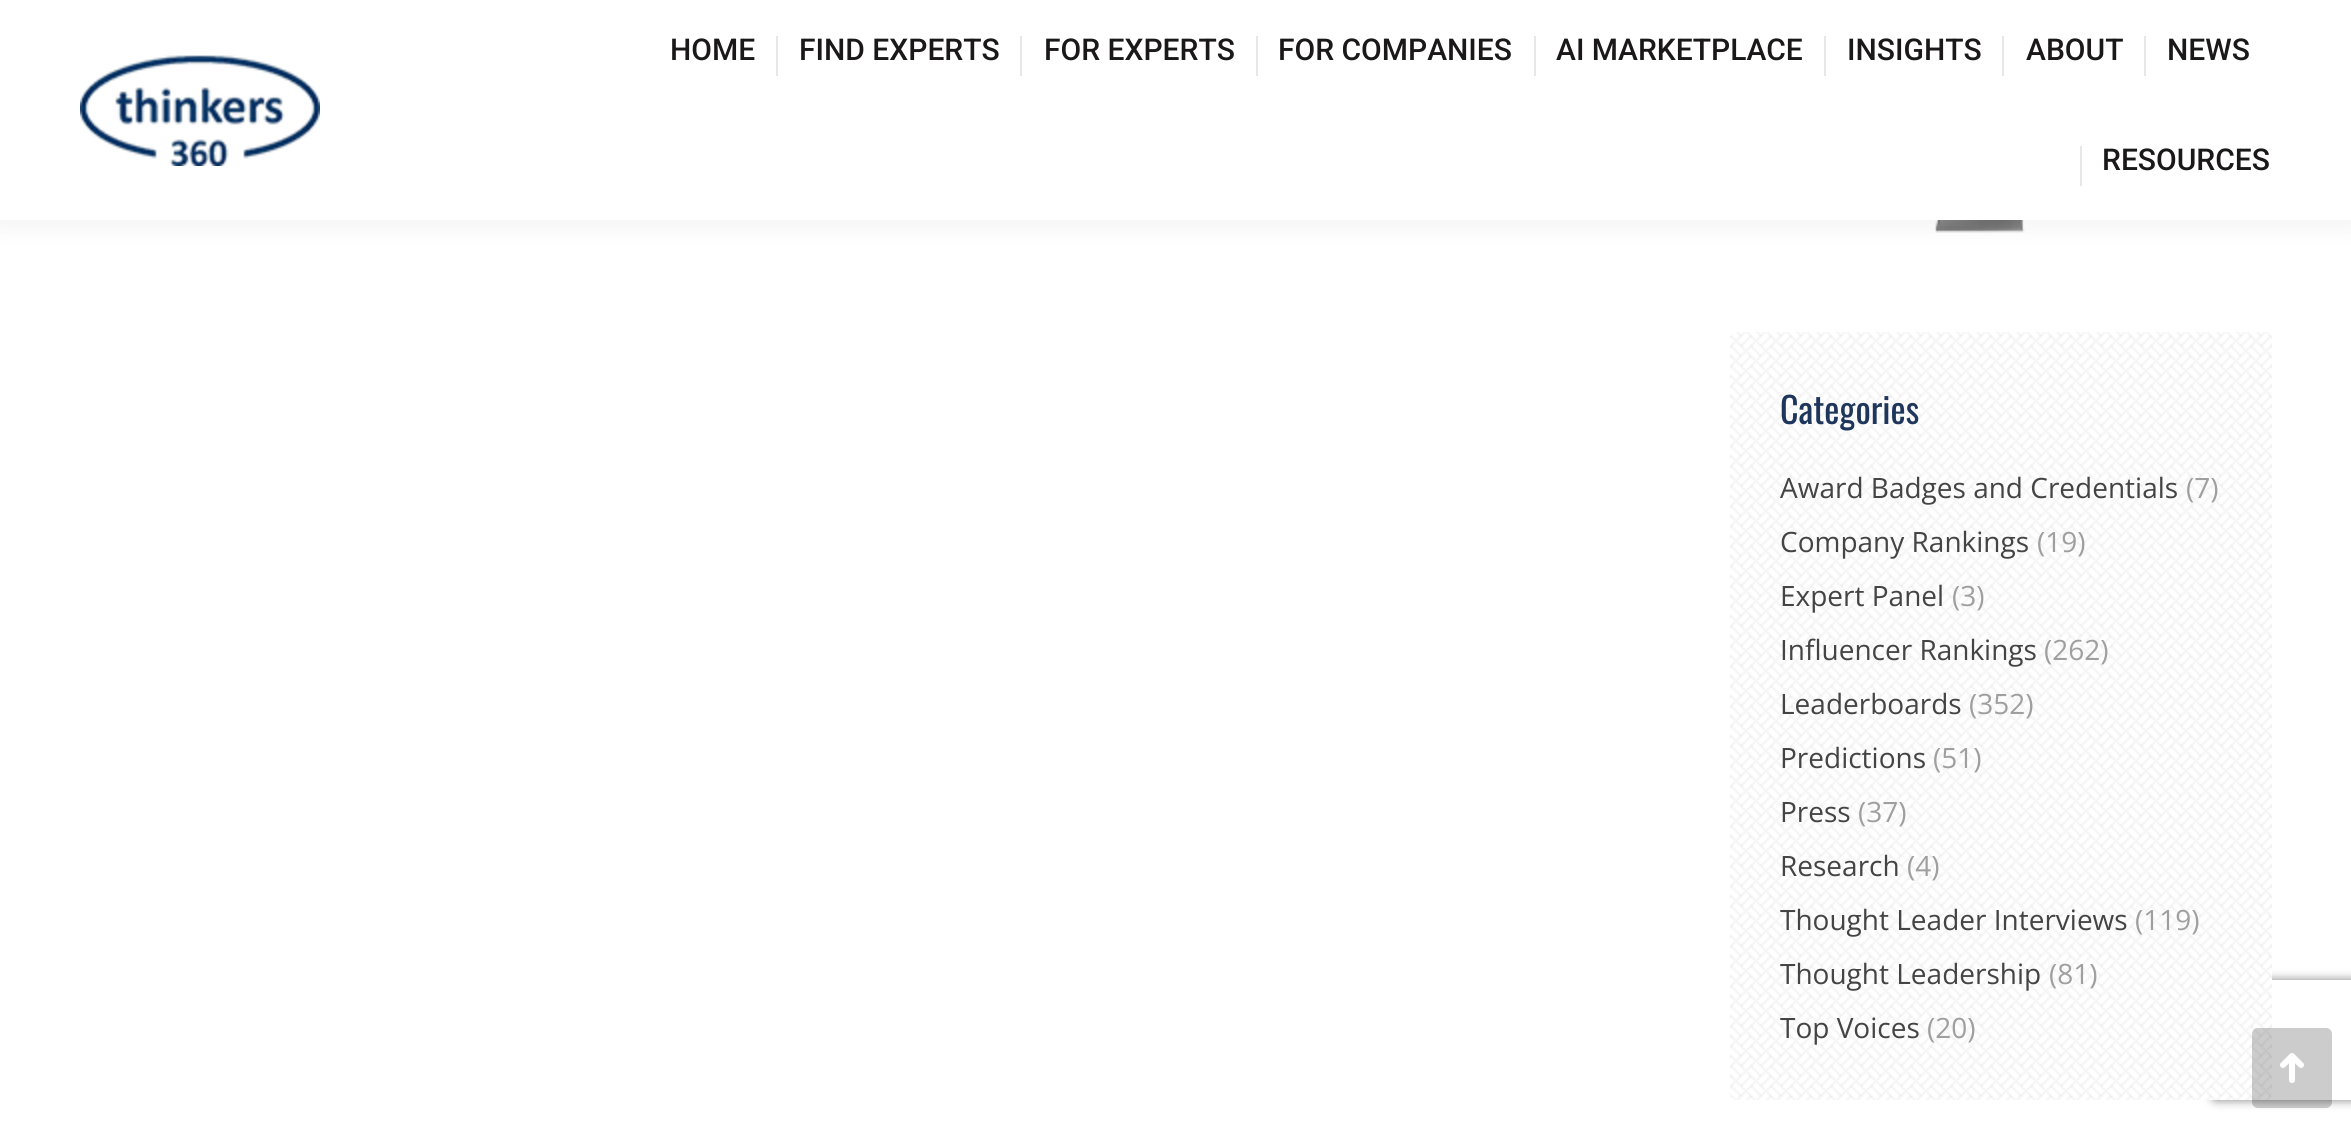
#include <cairo/cairo.h>
#include <math.h>
#include <stddef.h>

static cairo_t *cr;

static void use_color(int r, int g, int b) {
  cairo_set_source_rgb(cr, r / 255.0, g / 255.0, b / 255.0);
}

static void text(double x, double y, const char *s, const char *family, double size, int italic, int bold, int r, int g, int b) {
  cairo_select_font_face(cr, family, italic ? CAIRO_FONT_SLANT_ITALIC : CAIRO_FONT_SLANT_NORMAL,
    bold ? CAIRO_FONT_WEIGHT_BOLD : CAIRO_FONT_WEIGHT_NORMAL);
  cairo_set_font_size(cr, size);
  use_color(r, g, b);
  cairo_move_to(cr, x, y);
  cairo_show_text(cr, s);
}

static void box(double x, double y, double w, double h, int r, int g, int b) {
  use_color(r, g, b);
  cairo_rectangle(cr, x, y, w, h);
  cairo_fill(cr);
}

static void round_rect(double x, double y, double w, double h, double r) {
  cairo_new_sub_path(cr);
  cairo_arc(cr, x + w - r, y + h - r, r, 0, M_PI / 2);
  cairo_arc(cr, x + r, y + h - r, r, M_PI / 2, M_PI);
  cairo_arc(cr, x + r, y + r, r, M_PI, 1.5 * M_PI);
  cairo_arc(cr, x + w - r, y + r, r, 1.5 * M_PI, 2 * M_PI);
  cairo_close_path(cr);
}

static void shadow(double x, double y, double w, double h, double r, double blur, double alpha) {
  cairo_push_group_with_content(cr, CAIRO_CONTENT_ALPHA);
  cairo_set_operator(cr, CAIRO_OPERATOR_SOURCE);
  for (int i = 15; i >= -15 && fmin(w, h) + blur * i / 3 > 0; i -= 2) {
    double e = blur * i / 6;
    cairo_set_source_rgba(cr, 0, 0, 0, alpha * erfc((i - 1) / 8.5) / 2);
    round_rect(x - e, y - e, w + 2 * e, h + 2 * e, fmax(0, fmin(r + e + blur * .6, fmin(w, h) / 2 + e)));
    cairo_fill(cr);
  }
  cairo_pattern_t *soft = cairo_pop_group(cr);
  cairo_mask(cr, soft);
  cairo_pattern_destroy(soft);
}

static void picture(const char *path, double x, double y, double w, double h) {
  cairo_surface_t *image = cairo_image_surface_create_from_png(path);
  cairo_save(cr);
  cairo_set_source_surface(cr, image, x, y);
  cairo_rectangle(cr, x, y, w, h);
  cairo_fill(cr);
  cairo_restore(cr);
  cairo_surface_destroy(image);
}

static void draw(void) {
  use_color(255, 255, 255);
  cairo_paint(cr);
  picture("img_02.png", 1800, 220, 390, 13);
  use_color(0, 0, 0);
  shadow(-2, -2, 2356, 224, 0, 15, 0.07);
  box(0, 0, 2351, 220, 255, 255, 255);
  picture("img_01.png", 80, 55, 240, 111);
  box(776, 36, 2, 40, 231, 231, 231);
  box(1020, 36, 2, 40, 231, 231, 231);
  box(1256, 36, 2, 40, 231, 231, 231);
  box(1534, 36, 2, 40, 231, 231, 231);
  box(1824, 36, 2, 40, 231, 231, 231);
  box(2002, 36, 2, 40, 231, 231, 231);
  box(2144, 36, 2, 40, 231, 231, 231);
  box(2080, 146, 2, 40, 231, 231, 231);
  cairo_save(cr);
  cairo_set_fill_rule(cr, CAIRO_FILL_RULE_EVEN_ODD);
  cairo_new_path(cr);
  cairo_move_to(cr, 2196, 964);
  cairo_line_to(cr, 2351, 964);
  cairo_line_to(cr, 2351, 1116);
  cairo_line_to(cr, 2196, 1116);
  cairo_close_path(cr);
  cairo_move_to(cr, 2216, 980);
  cairo_line_to(cr, 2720, 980);
  cairo_curve_to(cr, 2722, 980, 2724, 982, 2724, 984);
  cairo_line_to(cr, 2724, 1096);
  cairo_curve_to(cr, 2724, 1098, 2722, 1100, 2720, 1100);
  cairo_line_to(cr, 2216, 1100);
  cairo_curve_to(cr, 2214, 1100, 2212, 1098, 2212, 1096);
  cairo_line_to(cr, 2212, 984);
  cairo_curve_to(cr, 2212, 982, 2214, 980, 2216, 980);
  cairo_close_path(cr);
  cairo_clip(cr);
  use_color(128, 128, 128);
  shadow(2212, 980, 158, 120, 4, 5, 1);
  cairo_restore(cr);
  picture("img_03.png", 1730, 332, 542, 768);
  cairo_set_source_rgba(cr, 0, 0, 0, 0.2);
  round_rect(2252, 1028, 80, 80, 6);
  cairo_fill(cr);
  picture("img_04.png", 2280, 1053, 24, 30);
  text(670, 60, "HOME", "Roboto Medium", 30, 0, 0, 26, 24, 24);
  text(799, 60, "FIND EXPERTS", "Roboto Medium", 30, 0, 0, 26, 24, 24);
  text(1044, 60, "FOR EXPERTS", "Roboto Medium", 30, 0, 0, 26, 24, 24);
  text(1278, 60, "FOR COMPANIES", "Roboto Medium", 30, 0, 0, 26, 24, 24);
  text(1556, 60, "AI MARKETPLACE", "Roboto Medium", 30, 0, 0, 26, 24, 24);
  text(1847, 60, "INSIGHTS", "Roboto Medium", 30, 0, 0, 26, 24, 24);
  text(2026, 60, "ABOUT", "Roboto Medium", 30, 0, 0, 26, 24, 24);
  text(2167, 60, "NEWS", "Roboto Medium", 30, 0, 0, 26, 24, 24);
  text(2102, 170, "RESOURCES", "Roboto Medium", 30, 0, 0, 26, 24, 24);
  text(1780, 424, "Categories", "Oswald", 36, 0, 0, 31, 54, 92);
  text(1780, 498, "Award Badges and Credentials", "Open Sans", 28, 0, 0, 68, 68, 68);
  text(2186, 498, "(7)", "Open Sans", 28, 0, 0, 159, 159, 159);
  text(1780, 552, "Company Rankings", "Open Sans", 28, 0, 0, 68, 68, 68);
  text(2037, 552, "(19)", "Open Sans", 28, 0, 0, 159, 159, 159);
  text(1780, 606, "Expert Panel", "Open Sans", 28, 0, 0, 68, 68, 68);
  text(1952, 606, "(3)", "Open Sans", 28, 0, 0, 159, 159, 159);
  text(1780, 660, "Influencer Rankings", "Open Sans", 28, 0, 0, 68, 68, 68);
  text(2044, 660, "(262)", "Open Sans", 28, 0, 0, 159, 159, 159);
  text(1780, 714, "Leaderboards", "Open Sans", 28, 0, 0, 68, 68, 68);
  text(1969, 714, "(352)", "Open Sans", 28, 0, 0, 159, 159, 159);
  text(1780, 768, "Predictions", "Open Sans", 28, 0, 0, 68, 68, 68);
  text(1933, 768, "(51)", "Open Sans", 28, 0, 0, 159, 159, 159);
  text(1780, 822, "Press", "Open Sans", 28, 0, 0, 68, 68, 68);
  text(1858, 822, "(37)", "Open Sans", 28, 0, 0, 159, 159, 159);
  text(1780, 876, "Research", "Open Sans", 28, 0, 0, 68, 68, 68);
  text(1907, 876, "(4)", "Open Sans", 28, 0, 0, 159, 159, 159);
  text(1780, 930, "Thought Leader Interviews", "Open Sans", 28, 0, 0, 68, 68, 68);
  text(2135, 930, "(119)", "Open Sans", 28, 0, 0, 159, 159, 159);
  text(1780, 984, "Thought Leadership", "Open Sans", 28, 0, 0, 68, 68, 68);
  text(2049, 984, "(81)", "Open Sans", 28, 0, 0, 159, 159, 159);
  text(1780, 1038, "Top Voices", "Open Sans", 28, 0, 0, 68, 68, 68);
  text(1927, 1038, "(20)", "Open Sans", 28, 0, 0, 159, 159, 159);
}

int main(void) {
  cairo_surface_t *surface = cairo_image_surface_create(CAIRO_FORMAT_RGB24, 2351, 1128);
  cr = cairo_create(surface);
  cairo_font_options_t *options = cairo_font_options_create();
  cairo_font_options_set_hint_metrics(options, CAIRO_HINT_METRICS_OFF);
  cairo_font_options_set_hint_style(options, CAIRO_HINT_STYLE_NONE);
  cairo_set_font_options(cr, options);
  cairo_set_miter_limit(cr, 4);
  draw();
  cairo_surface_write_to_png(surface, "out.png");
  cairo_font_options_destroy(options);
  cairo_destroy(cr);
  cairo_surface_destroy(surface);
  return 0;
}
